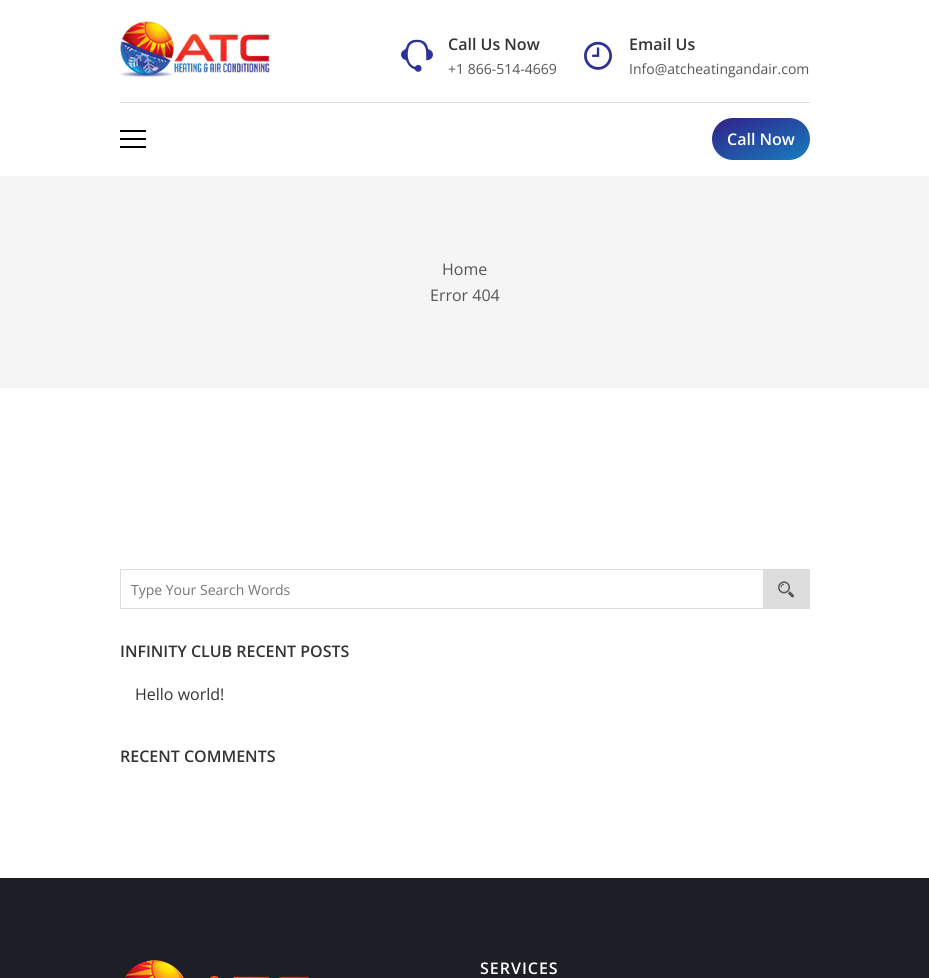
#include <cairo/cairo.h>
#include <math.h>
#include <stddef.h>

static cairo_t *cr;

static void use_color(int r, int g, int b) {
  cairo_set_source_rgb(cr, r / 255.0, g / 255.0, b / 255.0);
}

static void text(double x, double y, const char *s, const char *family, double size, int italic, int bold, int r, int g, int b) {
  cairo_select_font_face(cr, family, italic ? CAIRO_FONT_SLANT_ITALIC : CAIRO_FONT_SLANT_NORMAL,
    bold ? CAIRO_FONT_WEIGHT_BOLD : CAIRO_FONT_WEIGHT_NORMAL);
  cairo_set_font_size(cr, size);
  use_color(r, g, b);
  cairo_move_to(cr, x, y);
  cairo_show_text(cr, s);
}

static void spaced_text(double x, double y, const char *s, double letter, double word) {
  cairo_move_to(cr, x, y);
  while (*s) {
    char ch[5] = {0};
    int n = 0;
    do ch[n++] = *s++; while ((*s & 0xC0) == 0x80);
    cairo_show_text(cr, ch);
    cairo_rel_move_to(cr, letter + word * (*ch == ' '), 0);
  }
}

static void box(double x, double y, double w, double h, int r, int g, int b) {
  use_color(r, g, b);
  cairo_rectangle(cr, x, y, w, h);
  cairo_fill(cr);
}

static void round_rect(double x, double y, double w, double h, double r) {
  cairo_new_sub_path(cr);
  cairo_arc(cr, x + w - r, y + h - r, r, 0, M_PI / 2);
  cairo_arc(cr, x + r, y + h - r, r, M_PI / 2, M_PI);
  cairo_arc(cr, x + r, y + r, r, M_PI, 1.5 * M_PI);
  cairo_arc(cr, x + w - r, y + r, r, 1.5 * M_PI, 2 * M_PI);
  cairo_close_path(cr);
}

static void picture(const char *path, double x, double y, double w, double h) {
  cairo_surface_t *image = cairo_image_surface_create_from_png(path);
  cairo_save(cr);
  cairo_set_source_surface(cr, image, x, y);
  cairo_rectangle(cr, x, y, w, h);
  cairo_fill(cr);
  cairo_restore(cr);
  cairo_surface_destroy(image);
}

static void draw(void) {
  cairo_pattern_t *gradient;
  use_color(255, 255, 255);
  cairo_paint(cr);
  picture("img_01.png", 120, 21, 150, 56);
  picture("img_02.png", 401, 39, 32, 33);
  picture("img_03.png", 584, 41, 28, 29);
  box(120, 138, 26, 2, 0, 0, 0);
  box(120, 130, 26, 2, 0, 0, 0);
  box(120, 146, 26, 2, 0, 0, 0);
  box(120, 102, 690, 1, 221, 221, 221);
  gradient = cairo_pattern_create_linear(746, 104, 776, 174);
  cairo_pattern_add_color_stop_rgba(gradient, 0, 0.192, 0.129, 0.533, 1);
  cairo_pattern_add_color_stop_rgba(gradient, 1, 0.09, 0.49, 0.753, 1);
  cairo_set_source(cr, gradient);
  cairo_pattern_destroy(gradient);
  round_rect(712, 118, 98, 42, 21);
  cairo_fill(cr);
  box(0, 176, 929, 212, 245, 245, 245);
  cairo_rectangle(cr, 120.5, 569.5, 689, 39);
  use_color(221, 221, 221);
  cairo_set_line_width(cr, 1);
  cairo_stroke(cr);
  box(763, 570, 46, 38, 221, 221, 221);
  picture("img_04.png", 778, 581, 16, 17);
  box(0, 878, 929, 100, 29, 30, 38);
  picture("img_05.png", 125, 960, 184, 18);
  text(448, 50, "Call Us Now", "Open Sans SemiBold", 16, 0, 0, 51, 51, 51);
  text(448, 74, "+1 866-514-4669", "Open Sans", 14, 0, 0, 85, 85, 85);
  text(629, 50, "Email Us", "Open Sans SemiBold", 16, 0, 0, 51, 51, 51);
  text(629, 74, "Info@atcheatingandair.com", "Open Sans", 14, 0, 0, 85, 85, 85);
  text(727, 145, "Call Now", "Open Sans SemiBold", 16, 0, 0, 255, 255, 255);
  text(442, 275, "Home", "Open Sans", 16, 0, 0, 85, 85, 85);
  text(430, 301, "Error 404", "Open Sans", 16, 0, 0, 85, 85, 85);
  text(131, 595, "Type Your Search Words", "Open Sans", 14, 0, 0, 117, 117, 117);
  text(120, 657, "INFINITY CLUB RECENT POSTS", "Open Sans SemiBold", 16, 0, 0, 51, 51, 51);
  text(135, 700, "Hello world!", "Open Sans", 16, 0, 0, 51, 51, 51);
  text(120, 762, "RECENT COMMENTS", "Open Sans SemiBold", 16, 0, 0, 51, 51, 51);
  use_color(255, 255, 255);
  spaced_text(480, 974, "SERVICES", 1, 0);
}

int main(void) {
  cairo_surface_t *surface = cairo_image_surface_create(CAIRO_FORMAT_RGB24, 929, 978);
  cr = cairo_create(surface);
  cairo_font_options_t *options = cairo_font_options_create();
  cairo_font_options_set_hint_metrics(options, CAIRO_HINT_METRICS_OFF);
  cairo_font_options_set_hint_style(options, CAIRO_HINT_STYLE_NONE);
  cairo_set_font_options(cr, options);
  cairo_set_miter_limit(cr, 4);
  draw();
  cairo_surface_write_to_png(surface, "out.png");
  cairo_font_options_destroy(options);
  cairo_destroy(cr);
  cairo_surface_destroy(surface);
  return 0;
}
